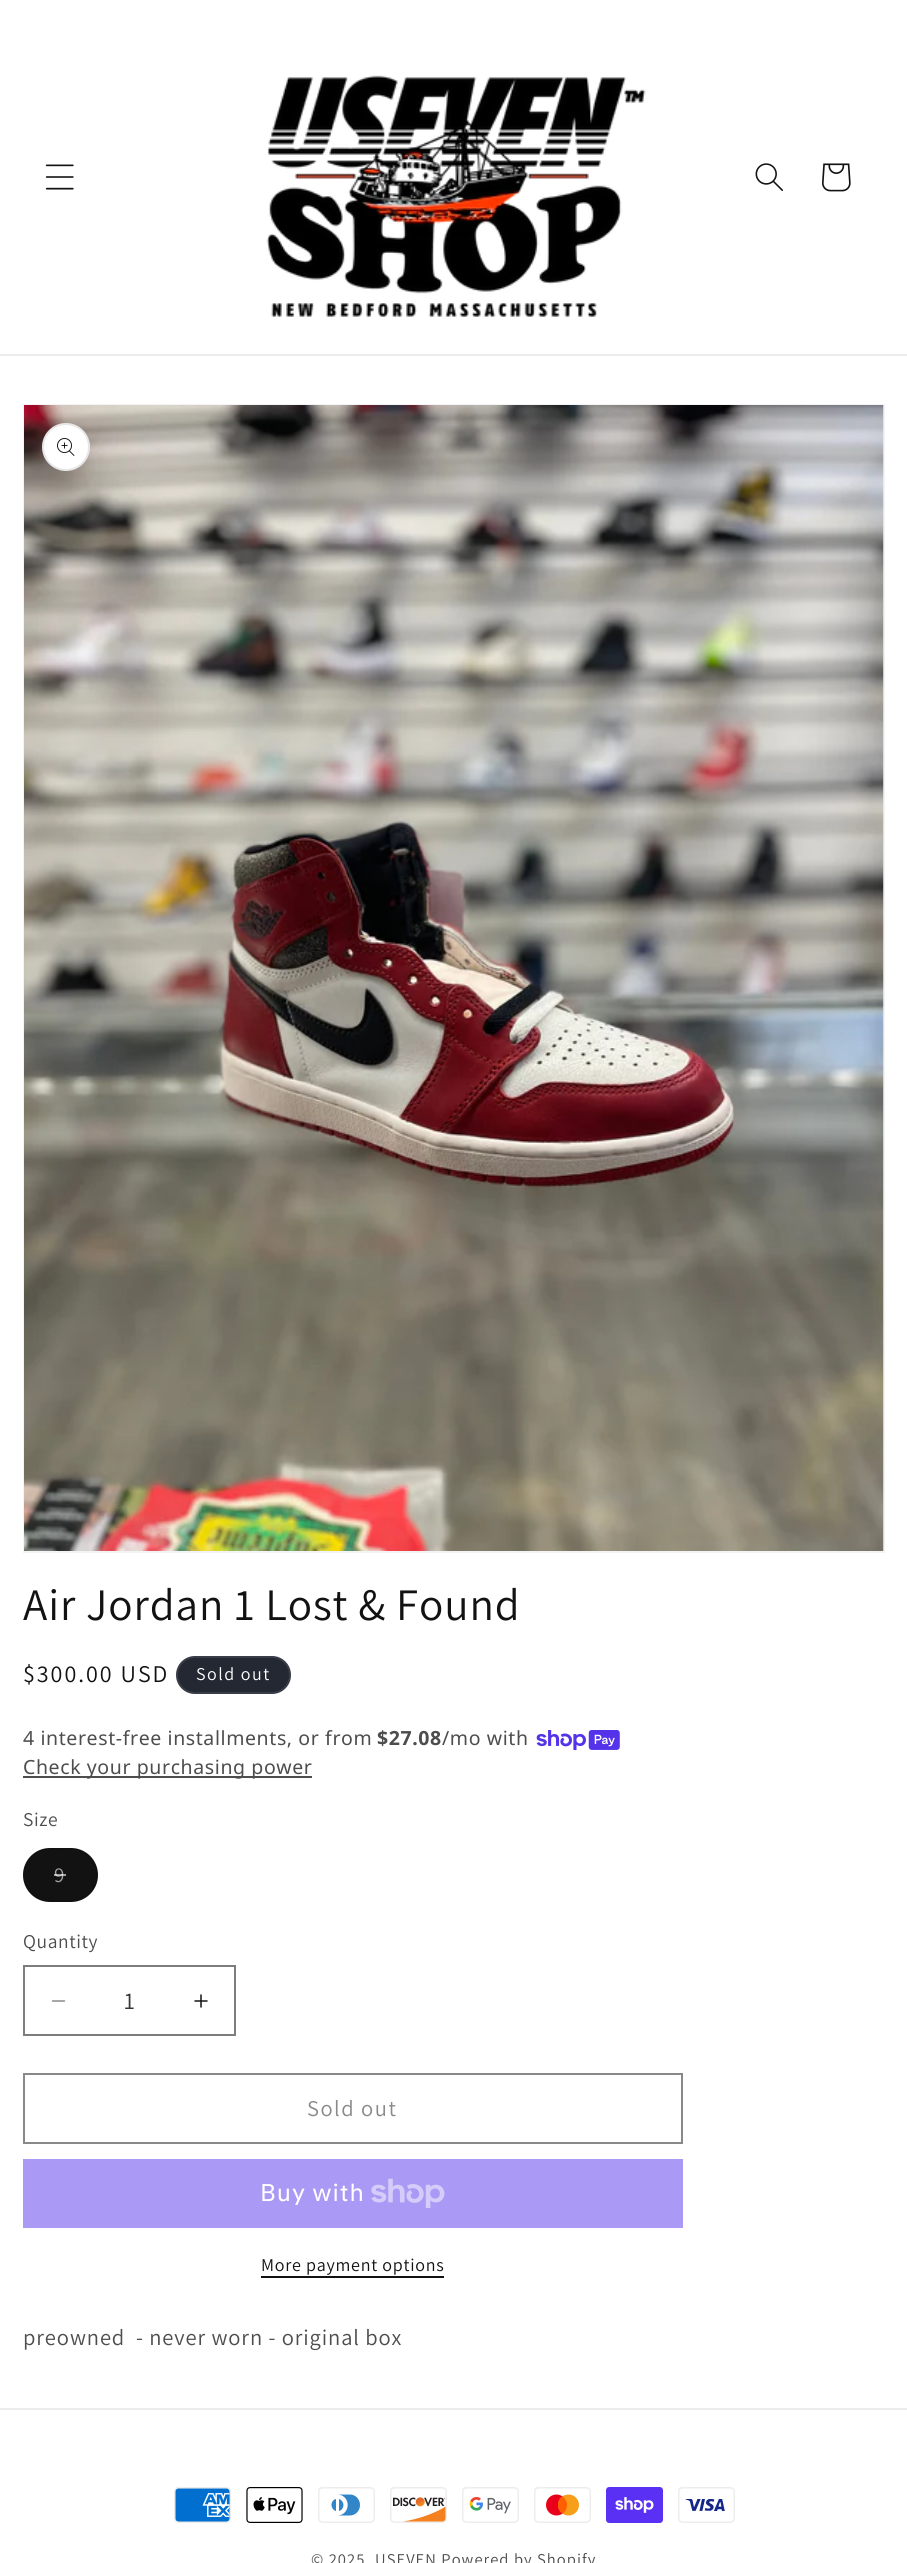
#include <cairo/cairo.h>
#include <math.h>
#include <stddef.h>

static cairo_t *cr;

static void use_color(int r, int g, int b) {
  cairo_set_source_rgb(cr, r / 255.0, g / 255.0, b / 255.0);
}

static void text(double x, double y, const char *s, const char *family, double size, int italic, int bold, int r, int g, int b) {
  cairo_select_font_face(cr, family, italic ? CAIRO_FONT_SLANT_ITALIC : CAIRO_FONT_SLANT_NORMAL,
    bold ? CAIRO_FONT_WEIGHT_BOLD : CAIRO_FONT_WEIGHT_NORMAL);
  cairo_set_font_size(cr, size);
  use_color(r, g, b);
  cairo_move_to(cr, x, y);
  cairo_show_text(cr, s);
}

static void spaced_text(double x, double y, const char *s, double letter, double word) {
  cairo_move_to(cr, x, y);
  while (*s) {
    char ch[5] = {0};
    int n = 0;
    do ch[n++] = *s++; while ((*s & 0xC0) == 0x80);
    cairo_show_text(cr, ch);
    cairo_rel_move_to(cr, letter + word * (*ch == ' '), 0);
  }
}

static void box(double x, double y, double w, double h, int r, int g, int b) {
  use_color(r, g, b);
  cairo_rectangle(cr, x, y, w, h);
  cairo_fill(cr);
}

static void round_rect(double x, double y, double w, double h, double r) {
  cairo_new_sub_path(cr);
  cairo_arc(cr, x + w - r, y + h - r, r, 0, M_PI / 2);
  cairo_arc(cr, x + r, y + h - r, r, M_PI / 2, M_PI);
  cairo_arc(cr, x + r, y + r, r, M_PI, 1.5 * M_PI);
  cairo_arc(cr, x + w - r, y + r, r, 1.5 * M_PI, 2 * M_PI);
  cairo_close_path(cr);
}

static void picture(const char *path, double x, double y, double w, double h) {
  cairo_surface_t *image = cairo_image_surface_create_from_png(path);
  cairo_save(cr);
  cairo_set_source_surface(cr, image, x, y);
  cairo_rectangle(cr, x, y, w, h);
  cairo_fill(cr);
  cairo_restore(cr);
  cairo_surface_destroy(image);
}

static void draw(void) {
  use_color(255, 255, 255);
  cairo_paint(cr);
  box(0, 354, 907, 2, 236, 236, 236);
  picture("img_01.png", 45, 164, 29, 26);
  picture("img_02.png", 266, 75, 380, 242);
  picture("img_03.png", 755, 163, 28, 28);
  picture("img_04.png", 822, 163, 29, 29);
  cairo_rectangle(cr, 24, 405, 860, 1147);
  use_color(243, 243, 243);
  cairo_stroke(cr);
  picture("img_05.png", 24, 405, 860, 1146);
  use_color(255, 255, 255);
  cairo_arc(cr, 66, 447, 24, 0, 2 * M_PI);
  cairo_fill(cr);
  cairo_arc(cr, 66, 447, 23, 0, 2 * M_PI);
  cairo_set_source_rgba(cr, 0.071, 0.071, 0.071, 0.1);
  cairo_stroke(cr);
  picture("img_06.png", 57, 438, 18, 18);
  use_color(36, 40, 51);
  round_rect(176, 1656, 115, 38, 19);
  cairo_fill(cr);
  round_rect(177, 1657, 113, 36, 18);
  cairo_set_source_rgba(cr, 1, 1, 1, 0.1);
  cairo_stroke(cr);
  picture("img_07.png", 536, 1730, 84, 21);
  box(23, 1776, 289, 2, 77, 77, 77);
  use_color(18, 18, 18);
  round_rect(23, 1848, 75, 54, 27);
  cairo_fill(cr);
  round_rect(24, 1849, 73, 52, 26);
  cairo_set_source_rgba(cr, 0.071, 0.071, 0.071, 0.1);
  cairo_stroke(cr);
  picture("img_08.png", 51, 2000, 15, 2);
  picture("img_09.png", 194, 1994, 14, 14);
  cairo_rectangle(cr, 24, 1966, 211, 69);
  use_color(125, 125, 125);
  cairo_stroke(cr);
  cairo_rectangle(cr, 24, 2074, 658, 69);
  use_color(137, 137, 137);
  cairo_stroke(cr);
  box(23, 2159, 660, 69, 170, 153, 245);
  picture("img_10.png", 371, 2178, 74, 30);
  box(261, 2276, 183, 2, 18, 18, 18);
  box(0, 2408, 907, 2, 236, 236, 236);
  picture("img_11.png", 174, 2487, 57, 36);
  picture("img_12.png", 246, 2487, 57, 36);
  picture("img_13.png", 318, 2487, 57, 36);
  picture("img_14.png", 390, 2487, 57, 36);
  picture("img_15.png", 462, 2487, 57, 36);
  picture("img_16.png", 534, 2487, 57, 36);
  picture("img_17.png", 606, 2487, 57, 36);
  picture("img_18.png", 678, 2487, 57, 36);
  cairo_select_font_face(cr, "Assistant", CAIRO_FONT_SLANT_NORMAL, CAIRO_FONT_WEIGHT_NORMAL);
  cairo_set_font_size(cr, 45);
  use_color(18, 18, 18);
  spaced_text(23, 1620, "Air Jordan 1 Lost & Found", 0.9, 0);
  cairo_set_font_size(cr, 24);
  spaced_text(23, 1682, "$300.00 USD", 2, 0);
  cairo_set_font_size(cr, 18);
  use_color(255, 255, 255);
  spaced_text(196, 1680, "Sold out", 1.5, 0);
  cairo_select_font_face(cr, "Noto Sans", CAIRO_FONT_SLANT_NORMAL, CAIRO_FONT_WEIGHT_NORMAL);
  cairo_set_font_size(cr, 19.5);
  use_color(77, 77, 77);
  spaced_text(23, 1745, "4 interest-free installments, or from", 0.6, 0);
  cairo_select_font_face(cr, "Noto Sans", CAIRO_FONT_SLANT_NORMAL, CAIRO_FONT_WEIGHT_BOLD);
  spaced_text(377, 1745, "$27.08", 0.6, 0);
  cairo_select_font_face(cr, "Noto Sans", CAIRO_FONT_SLANT_NORMAL, CAIRO_FONT_WEIGHT_NORMAL);
  spaced_text(442, 1745, "/mo with", 0.6, 0);
  spaced_text(23, 1774, "Check your purchasing power", 0.6, 0);
  cairo_select_font_face(cr, "Assistant", CAIRO_FONT_SLANT_NORMAL, CAIRO_FONT_WEIGHT_NORMAL);
  spaced_text(23, 1826, "Size", 0.6, 0);
  cairo_set_font_size(cr, 21);
  use_color(160, 160, 160);
  spaced_text(54, 1882, "9", 1.5, 0);
  cairo_set_source_rgba(cr, 1, 1, 1, 0.6);
  cairo_rectangle(cr, 54, 1874, 12, 2);
  cairo_fill(cr);
  cairo_set_font_size(cr, 19.5);
  use_color(77, 77, 77);
  spaced_text(23, 1948, "Quantity", 0.6, 0);
  text(124, 2009, "1", "Assistant", 24, 0, 0, 54, 54, 54);
  cairo_set_font_size(cr, 22.5);
  use_color(137, 137, 137);
  spaced_text(307, 2116, "Sold out", 1.5, 0);
  cairo_select_font_face(cr, "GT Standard", CAIRO_FONT_SLANT_NORMAL, CAIRO_FONT_WEIGHT_NORMAL);
  cairo_set_font_size(cr, 24);
  use_color(255, 255, 255);
  spaced_text(260, 2201, "Buy with", 0.9, 0);
  cairo_select_font_face(cr, "Assistant", CAIRO_FONT_SLANT_NORMAL, CAIRO_FONT_WEIGHT_NORMAL);
  cairo_set_font_size(cr, 18);
  use_color(18, 18, 18);
  spaced_text(261, 2271, "More payment options", 0.75, 0);
  cairo_set_font_size(cr, 22.5);
  use_color(77, 77, 77);
  spaced_text(23, 2345, "preowned  - never worn - original box", 0.9, 0);
  cairo_set_font_size(cr, 16.5);
  spaced_text(311, 2565, "© 2025", 1.05, 0);
  spaced_text(375, 2565, "USEVEN Powered by Shopify", 1.05, 0);
}

int main(void) {
  cairo_surface_t *surface = cairo_image_surface_create(CAIRO_FORMAT_RGB24, 907, 2563);
  cr = cairo_create(surface);
  cairo_font_options_t *options = cairo_font_options_create();
  cairo_font_options_set_hint_metrics(options, CAIRO_HINT_METRICS_OFF);
  cairo_font_options_set_hint_style(options, CAIRO_HINT_STYLE_NONE);
  cairo_set_font_options(cr, options);
  cairo_set_miter_limit(cr, 4);
  draw();
  cairo_surface_write_to_png(surface, "out.png");
  cairo_font_options_destroy(options);
  cairo_destroy(cr);
  cairo_surface_destroy(surface);
  return 0;
}
